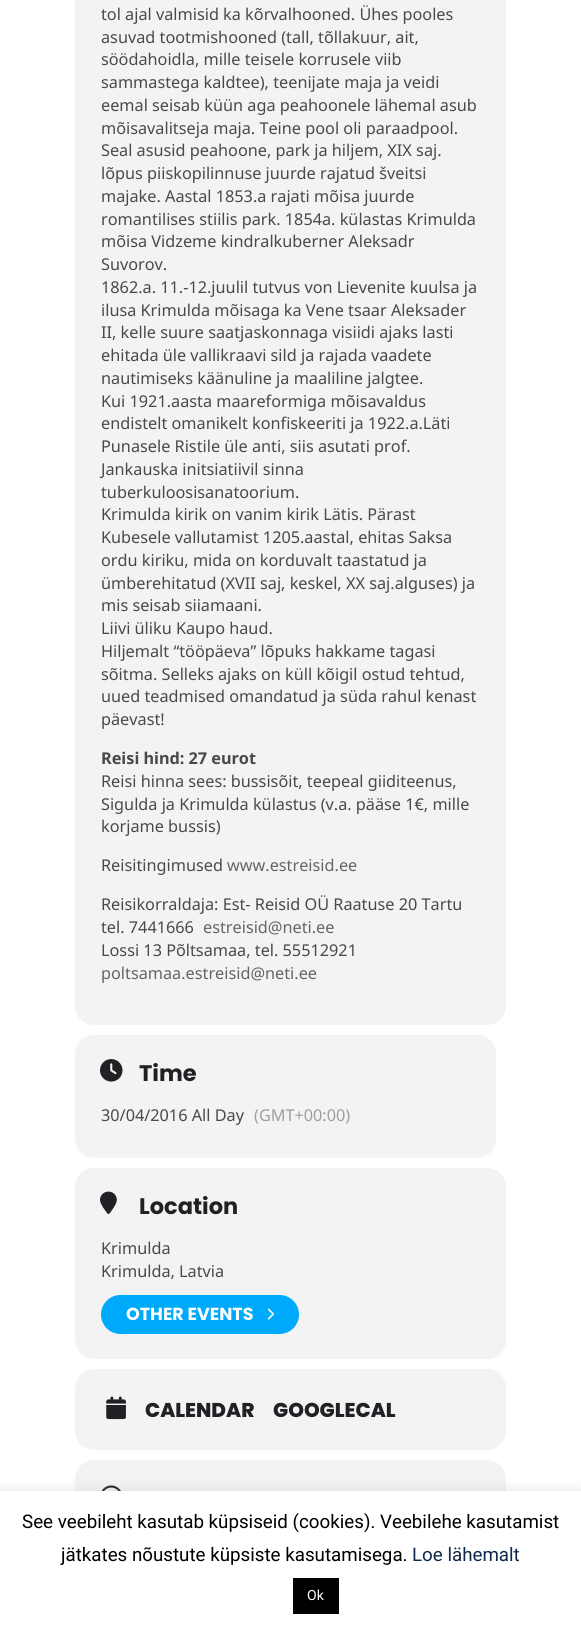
#include <cairo/cairo.h>
#include <math.h>
#include <stddef.h>

static cairo_t *cr;

static void use_color(int r, int g, int b) {
  cairo_set_source_rgb(cr, r / 255.0, g / 255.0, b / 255.0);
}

static void text(double x, double y, const char *s, const char *family, double size, int italic, int bold, int r, int g, int b) {
  cairo_select_font_face(cr, family, italic ? CAIRO_FONT_SLANT_ITALIC : CAIRO_FONT_SLANT_NORMAL,
    bold ? CAIRO_FONT_WEIGHT_BOLD : CAIRO_FONT_WEIGHT_NORMAL);
  cairo_set_font_size(cr, size);
  use_color(r, g, b);
  cairo_move_to(cr, x, y);
  cairo_show_text(cr, s);
}

static void box(double x, double y, double w, double h, int r, int g, int b) {
  use_color(r, g, b);
  cairo_rectangle(cr, x, y, w, h);
  cairo_fill(cr);
}

static void round_rect(double x, double y, double w, double h, double r) {
  cairo_new_sub_path(cr);
  cairo_arc(cr, x + w - r, y + h - r, r, 0, M_PI / 2);
  cairo_arc(cr, x + r, y + h - r, r, M_PI / 2, M_PI);
  cairo_arc(cr, x + r, y + r, r, M_PI, 1.5 * M_PI);
  cairo_arc(cr, x + w - r, y + r, r, 1.5 * M_PI, 2 * M_PI);
  cairo_close_path(cr);
}

static void shadow(double x, double y, double w, double h, double r, double blur, double alpha) {
  cairo_push_group_with_content(cr, CAIRO_CONTENT_ALPHA);
  cairo_set_operator(cr, CAIRO_OPERATOR_SOURCE);
  for (int i = 15; i >= -15 && fmin(w, h) + blur * i / 3 > 0; i -= 2) {
    double e = blur * i / 6;
    cairo_set_source_rgba(cr, 0, 0, 0, alpha * erfc((i - 1) / 8.5) / 2);
    round_rect(x - e, y - e, w + 2 * e, h + 2 * e, fmax(0, fmin(r + e + blur * .6, fmin(w, h) / 2 + e)));
    cairo_fill(cr);
  }
  cairo_pattern_t *soft = cairo_pop_group(cr);
  cairo_mask(cr, soft);
  cairo_pattern_destroy(soft);
}

static void picture(const char *path, double x, double y, double w, double h) {
  cairo_surface_t *image = cairo_image_surface_create_from_png(path);
  cairo_save(cr);
  cairo_set_source_surface(cr, image, x, y);
  cairo_rectangle(cr, x, y, w, h);
  cairo_fill(cr);
  cairo_restore(cr);
  cairo_surface_destroy(image);
}

static void draw(void) {
  use_color(255, 255, 255);
  cairo_paint(cr);
  use_color(243, 243, 243);
  round_rect(75, -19, 431, 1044, 19);
  cairo_fill(cr);
  round_rect(75, 1035, 421, 123, 19);
  cairo_fill(cr);
  picture("img_01.png", 100, 1059, 23, 23);
  round_rect(75, 1168, 431, 191, 19);
  cairo_fill(cr);
  picture("img_02.png", 100, 1191, 17, 23);
  use_color(0, 170, 251);
  round_rect(101, 1295, 198, 39, 19.5);
  cairo_fill(cr);
  picture("img_03.png", 267, 1308, 7, 12);
  use_color(243, 243, 243);
  round_rect(75, 1369, 431, 81, 19);
  cairo_fill(cr);
  picture("img_04.png", 106, 1396, 20, 24);
  round_rect(75, 1460, 431, 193, 19);
  cairo_fill(cr);
  picture("img_05.png", 101, 1485, 20, 6);
  use_color(172, 171, 171);
  shadow(0, 1490, 581, 144, 0, 6, 0.3);
  box(0, 1491, 581, 143, 255, 255, 255);
  box(293, 1578, 46, 36, 0, 0, 0);
  text(101, 20, "tol ajal valmisid ka kõrvalhooned. Ühes pooles", "Noto Sans", 16.25, 0, 0, 74, 73, 74);
  text(101, 43, "asuvad tootmishooned (tall, tõllakuur, ait,", "Noto Sans", 16.25, 0, 0, 74, 73, 74);
  text(101, 65, "söödahoidla, mille teisele korrusele viib", "Noto Sans", 16.25, 0, 0, 74, 73, 74);
  text(101, 88, "sammastega kaldtee), teenijate maja ja veidi", "Noto Sans", 16.25, 0, 0, 74, 73, 74);
  text(101, 111, "eemal seisab küün aga peahoonele lähemal asub", "Noto Sans", 16.25, 0, 0, 74, 73, 74);
  text(101, 134, "mõisavalitseja maja. Teine pool oli paraadpool.", "Noto Sans", 16.25, 0, 0, 74, 73, 74);
  text(101, 156, "Seal asusid peahoone, park ja hiljem, XIX saj.", "Noto Sans", 16.25, 0, 0, 74, 73, 74);
  text(101, 179, "lõpus piiskopilinnuse juurde rajatud šveitsi", "Noto Sans", 16.25, 0, 0, 74, 73, 74);
  text(101, 202, "majake. Aastal 1853.a rajati mõisa juurde", "Noto Sans", 16.25, 0, 0, 74, 73, 74);
  text(101, 225, "romantilises stiilis park. 1854a. külastas Krimulda", "Noto Sans", 16.25, 0, 0, 74, 73, 74);
  text(101, 247, "mõisa Vidzeme kindralkuberner Aleksadr", "Noto Sans", 16.25, 0, 0, 74, 73, 74);
  text(101, 270, "Suvorov.", "Noto Sans", 16.25, 0, 0, 74, 73, 74);
  text(101, 293, "1862.a. 11.-12.juulil tutvus von Lievenite kuulsa ja", "Noto Sans", 16.25, 0, 0, 74, 73, 74);
  text(101, 316, "ilusa Krimulda mõisaga ka Vene tsaar Aleksader", "Noto Sans", 16.25, 0, 0, 74, 73, 74);
  text(101, 338, "II, kelle suure saatjaskonnaga visiidi ajaks lasti", "Noto Sans", 16.25, 0, 0, 74, 73, 74);
  text(101, 361, "ehitada üle vallikraavi sild ja rajada vaadete", "Noto Sans", 16.25, 0, 0, 74, 73, 74);
  text(101, 384, "nautimiseks käänuline ja maaliline jalgtee.", "Noto Sans", 16.25, 0, 0, 74, 73, 74);
  text(101, 407, "Kui 1921.aasta maareformiga mõisavaldus", "Noto Sans", 16.25, 0, 0, 74, 73, 74);
  text(101, 429, "endistelt omanikelt konfiskeeriti ja 1922.a.Läti", "Noto Sans", 16.25, 0, 0, 74, 73, 74);
  text(101, 452, "Punasele Ristile üle anti, siis asutati prof.", "Noto Sans", 16.25, 0, 0, 74, 73, 74);
  text(101, 475, "Jankauska initsiatiivil sinna", "Noto Sans", 16.25, 0, 0, 74, 73, 74);
  text(101, 498, "tuberkuloosisanatoorium.", "Noto Sans", 16.25, 0, 0, 74, 73, 74);
  text(101, 520, "Krimulda kirik on vanim kirik Lätis. Pärast", "Noto Sans", 16.25, 0, 0, 74, 73, 74);
  text(101, 543, "Kubesele vallutamist 1205.aastal, ehitas Saksa", "Noto Sans", 16.25, 0, 0, 74, 73, 74);
  text(101, 566, "ordu kiriku, mida on korduvalt taastatud ja", "Noto Sans", 16.25, 0, 0, 74, 73, 74);
  text(101, 589, "ümberehitatud (XVII saj, keskel, XX saj.alguses) ja", "Noto Sans", 16.25, 0, 0, 74, 73, 74);
  text(101, 611, "mis seisab siiamaani.", "Noto Sans", 16.25, 0, 0, 74, 73, 74);
  text(101, 634, "Liivi üliku Kaupo haud.", "Noto Sans", 16.25, 0, 0, 74, 73, 74);
  text(101, 657, "Hiljemalt “tööpäeva” lõpuks hakkame tagasi", "Noto Sans", 16.25, 0, 0, 74, 73, 74);
  text(101, 680, "sõitma. Selleks ajaks on küll kõigil ostud tehtud,", "Noto Sans", 16.25, 0, 0, 74, 73, 74);
  text(101, 702, "uued teadmised omandatud ja süda rahul kenast", "Noto Sans", 16.25, 0, 0, 74, 73, 74);
  text(101, 725, "päevast!", "Noto Sans", 16.25, 0, 0, 74, 73, 74);
  text(101, 764, "Reisi hind: 27 eurot", "Noto Sans", 16.25, 0, 1, 74, 73, 74);
  text(101, 787, "Reisi hinna sees: bussisõit, teepeal giiditeenus,", "Noto Sans", 16.25, 0, 0, 74, 73, 74);
  text(101, 810, "Sigulda ja Krimulda külastus (v.a. pääse 1€, mille", "Noto Sans", 16.25, 0, 0, 74, 73, 74);
  text(101, 832, "korjame bussis)", "Noto Sans", 16.25, 0, 0, 74, 73, 74);
  text(101, 871, "Reisitingimused", "Noto Sans", 16.25, 0, 0, 74, 73, 74);
  text(227, 871, "www.estreisid.ee", "Noto Sans", 16.25, 0, 0, 101, 101, 101);
  text(101, 910, "Reisikorraldaja: Est- Reisid OÜ Raatuse 20 Tartu", "Noto Sans", 16.25, 0, 0, 74, 73, 74);
  text(101, 933, "tel. 7441666", "Noto Sans", 16.25, 0, 0, 74, 73, 74);
  text(203, 933, "estreisid@neti.ee", "Noto Sans", 16.25, 0, 0, 101, 101, 101);
  text(101, 956, "Lossi 13 Põltsamaa, tel. 55512921", "Noto Sans", 16.25, 0, 0, 74, 73, 74);
  text(101, 979, "poltsamaa.estreisid@neti.ee", "Noto Sans", 16.25, 0, 0, 101, 101, 101);
  text(139, 1081, "Time", "Poppins", 22.5, 0, 1, 32, 33, 36);
  text(101, 1121, "30/04/2016 All Day", "Noto Sans", 16.25, 0, 0, 74, 73, 74);
  text(254, 1121, "(GMT+00:00)", "Noto Sans", 16.25, 0, 0, 159, 158, 159);
  text(139, 1214, "Location", "Poppins", 22.5, 0, 1, 32, 33, 36);
  text(101, 1254, "Krimulda", "Noto Sans", 16.25, 0, 0, 74, 73, 74);
  text(101, 1277, "Krimulda, Latvia", "Noto Sans", 16.25, 0, 0, 74, 73, 74);
  text(126, 1320, "OTHER EVENTS", "Poppins", 17.5, 0, 1, 255, 255, 255);
  text(145, 1417, "CALENDAR", "Poppins ExtraBold", 20, 0, 0, 32, 33, 36);
  text(273, 1417, "GOOGLECAL", "Poppins ExtraBold", 20, 0, 0, 32, 33, 36);
  text(22, 1528, "See veebileht kasutab küpsiseid (cookies). Veebilehe kasutamist", "Roboto", 18.75, 0, 0, 0, 0, 0);
  text(61, 1561, "jätkates nõustute küpsiste kasutamisega.", "Roboto", 18.75, 0, 0, 0, 0, 0);
  text(412, 1561, "Loe lähemalt", "Roboto", 18.75, 0, 0, 16, 40, 74);
  text(307, 1600, "Ok", "Roboto", 14, 0, 0, 255, 255, 255);
}

int main(void) {
  cairo_surface_t *surface = cairo_image_surface_create(CAIRO_FORMAT_RGB24, 581, 1634);
  cr = cairo_create(surface);
  cairo_font_options_t *options = cairo_font_options_create();
  cairo_font_options_set_hint_metrics(options, CAIRO_HINT_METRICS_OFF);
  cairo_font_options_set_hint_style(options, CAIRO_HINT_STYLE_NONE);
  cairo_set_font_options(cr, options);
  cairo_set_miter_limit(cr, 4);
  draw();
  cairo_surface_write_to_png(surface, "out.png");
  cairo_font_options_destroy(options);
  cairo_destroy(cr);
  cairo_surface_destroy(surface);
  return 0;
}
